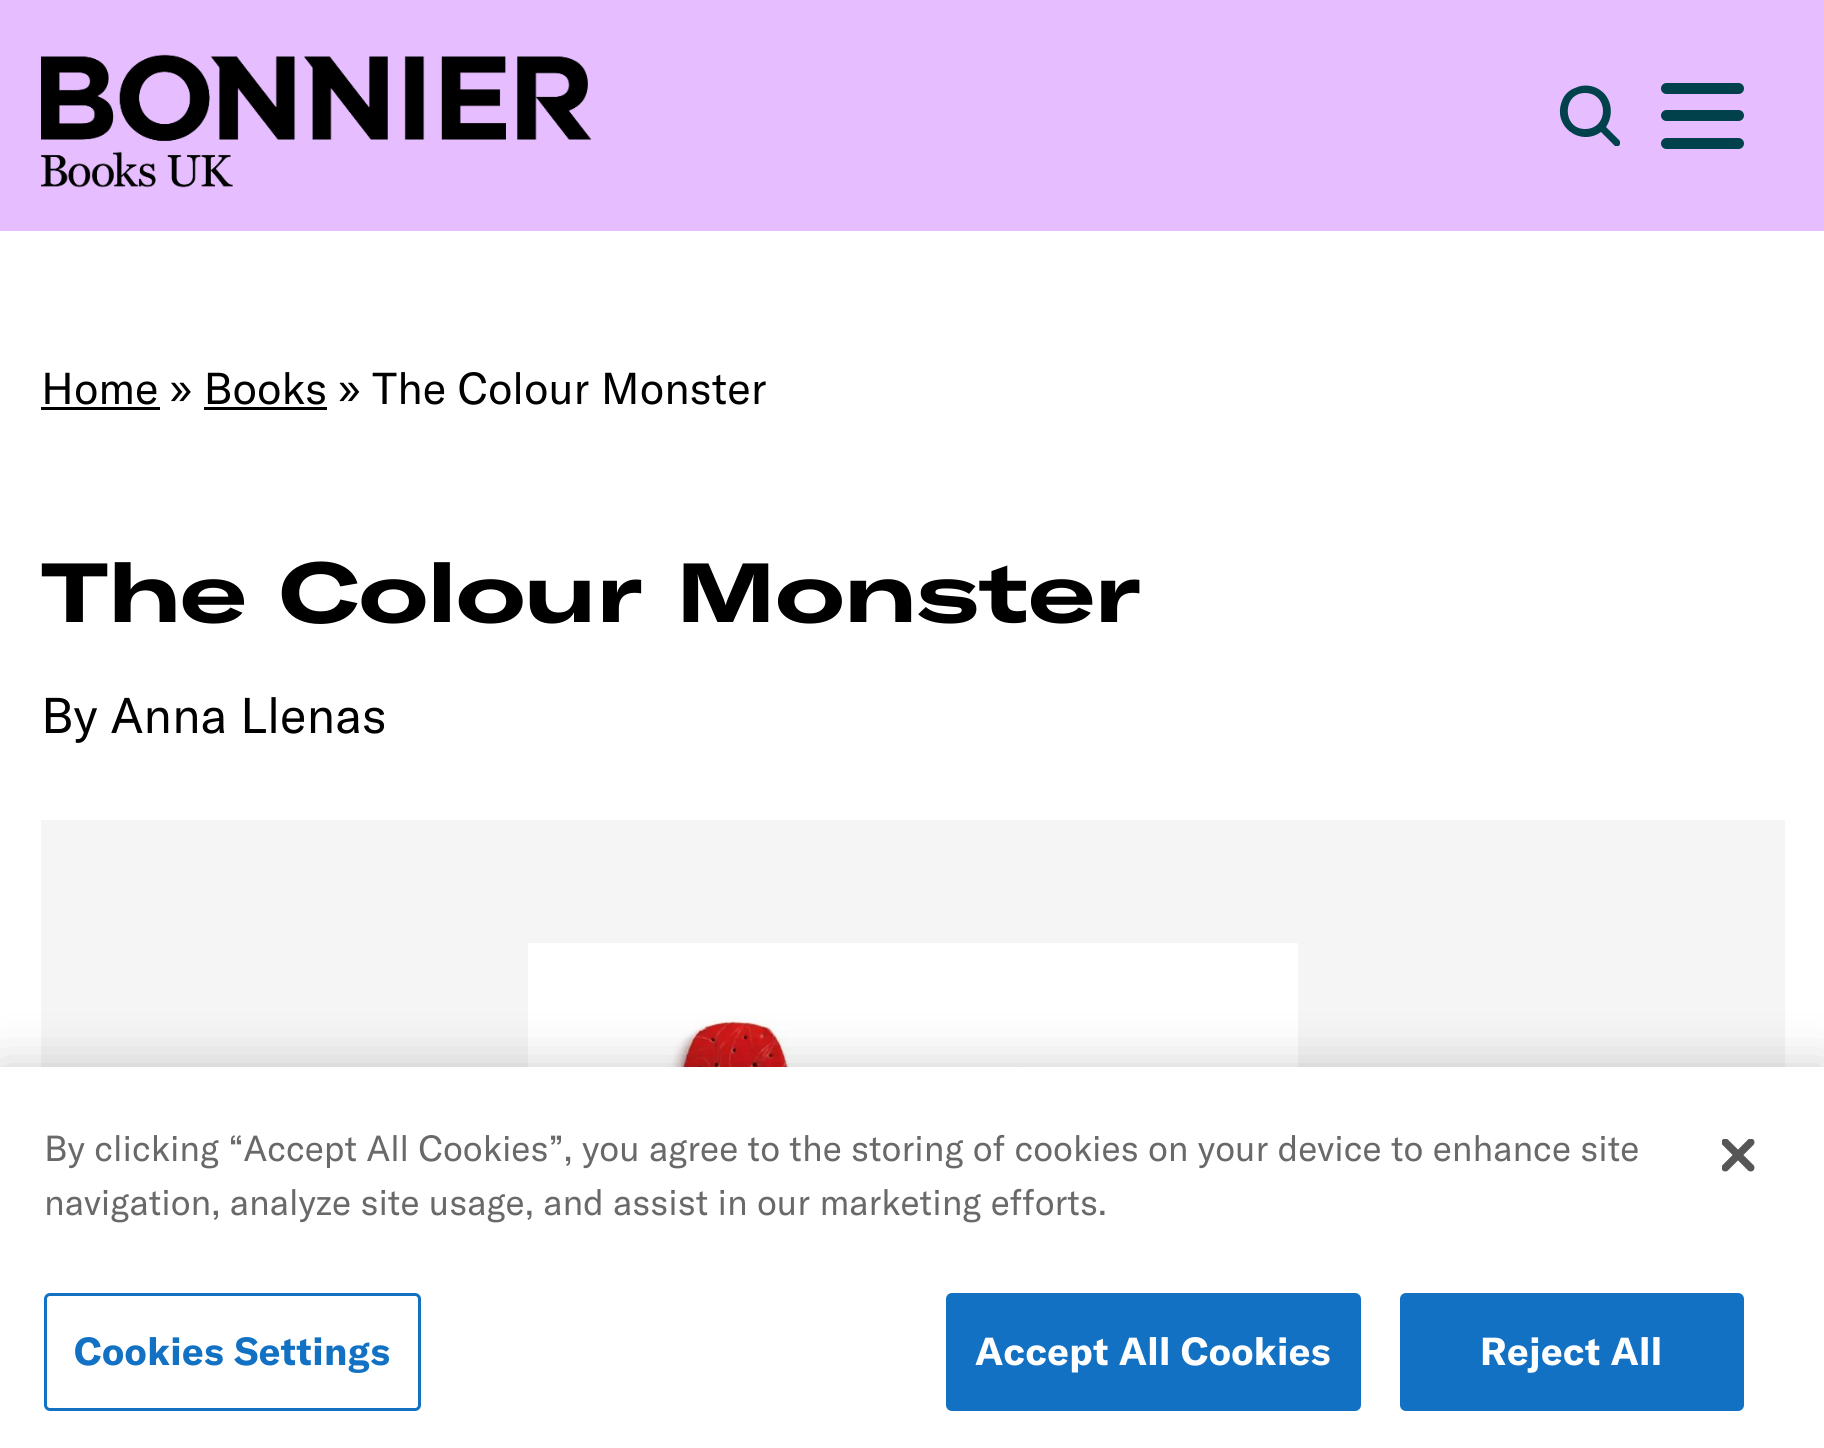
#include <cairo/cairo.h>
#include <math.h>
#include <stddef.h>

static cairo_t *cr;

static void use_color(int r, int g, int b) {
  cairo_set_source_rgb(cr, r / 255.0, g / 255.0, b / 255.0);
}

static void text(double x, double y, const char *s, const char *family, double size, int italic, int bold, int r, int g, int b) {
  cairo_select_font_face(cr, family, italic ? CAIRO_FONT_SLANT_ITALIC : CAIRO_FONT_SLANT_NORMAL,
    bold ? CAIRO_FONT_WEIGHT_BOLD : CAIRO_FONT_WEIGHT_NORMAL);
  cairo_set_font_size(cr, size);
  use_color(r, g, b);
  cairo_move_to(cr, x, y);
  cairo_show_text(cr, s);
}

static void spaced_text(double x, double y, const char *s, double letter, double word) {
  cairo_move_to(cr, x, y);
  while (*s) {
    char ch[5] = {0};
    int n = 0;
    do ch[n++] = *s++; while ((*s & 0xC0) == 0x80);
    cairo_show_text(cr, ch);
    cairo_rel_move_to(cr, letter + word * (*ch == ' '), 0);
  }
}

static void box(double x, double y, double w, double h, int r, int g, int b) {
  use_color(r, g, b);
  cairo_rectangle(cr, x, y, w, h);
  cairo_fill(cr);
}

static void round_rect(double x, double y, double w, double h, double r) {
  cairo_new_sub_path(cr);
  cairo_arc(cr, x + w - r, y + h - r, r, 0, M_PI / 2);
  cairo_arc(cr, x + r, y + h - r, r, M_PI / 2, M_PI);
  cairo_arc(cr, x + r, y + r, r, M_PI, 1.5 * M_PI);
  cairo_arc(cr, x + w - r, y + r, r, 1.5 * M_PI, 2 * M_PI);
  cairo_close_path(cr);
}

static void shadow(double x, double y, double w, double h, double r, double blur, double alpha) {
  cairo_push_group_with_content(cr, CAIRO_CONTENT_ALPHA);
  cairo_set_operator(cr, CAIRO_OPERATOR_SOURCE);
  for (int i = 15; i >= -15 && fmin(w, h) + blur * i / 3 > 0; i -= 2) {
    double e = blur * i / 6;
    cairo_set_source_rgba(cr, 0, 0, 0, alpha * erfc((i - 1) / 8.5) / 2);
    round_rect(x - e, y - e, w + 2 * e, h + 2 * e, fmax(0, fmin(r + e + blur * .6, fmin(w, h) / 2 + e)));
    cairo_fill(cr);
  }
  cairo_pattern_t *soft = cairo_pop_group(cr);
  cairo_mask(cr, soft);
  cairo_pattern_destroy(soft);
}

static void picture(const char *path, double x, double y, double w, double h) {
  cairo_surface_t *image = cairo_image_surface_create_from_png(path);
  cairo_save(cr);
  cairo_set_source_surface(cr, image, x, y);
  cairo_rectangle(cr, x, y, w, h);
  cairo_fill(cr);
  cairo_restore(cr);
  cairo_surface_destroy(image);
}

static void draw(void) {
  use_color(255, 255, 255);
  cairo_paint(cr);
  box(0, 0, 1824, 231, 230, 190, 255);
  picture("img_01.png", 41, 54, 551, 134);
  cairo_save(cr);
  cairo_rectangle(cr, 1559, 85, 61, 61);
  cairo_clip(cr);
  use_color(0, 65, 75);
  cairo_new_path(cr);
  cairo_move_to(cr, 1619, 140);
  cairo_line_to(cr, 1606, 127);
  cairo_curve_to(cr, 1614, 115, 1612, 98, 1600, 90);
  cairo_curve_to(cr, 1593, 85, 1583, 84, 1575, 88);
  cairo_curve_to(cr, 1569, 90, 1564, 95, 1562, 101);
  cairo_curve_to(cr, 1552, 126, 1580, 147, 1601, 132);
  cairo_line_to(cr, 1615, 146);
  cairo_curve_to(cr, 1619, 148, 1622, 143, 1619, 140);
  cairo_close_path(cr);
  cairo_move_to(cr, 1585, 129);
  cairo_curve_to(cr, 1562, 129, 1562, 93, 1585, 93);
  cairo_curve_to(cr, 1609, 93, 1609, 129, 1585, 129);
  cairo_close_path(cr);
  cairo_fill(cr);
  cairo_restore(cr);
  use_color(0, 65, 75);
  round_rect(1661, 110, 83, 11, 5.5);
  cairo_fill(cr);
  round_rect(1661, 83, 83, 11, 5.5);
  cairo_fill(cr);
  round_rect(1661, 138, 83, 11, 5.5);
  cairo_fill(cr);
  box(41, 407, 119, 3, 0, 0, 0);
  box(204, 407, 123, 3, 0, 0, 0);
  box(41, 820, 1744, 247, 245, 245, 245);
  picture("img_02.png", 528, 943, 770, 124);
  use_color(0, 0, 0);
  shadow(0, 1067, 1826, 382, 0, 25, 0.2);
  box(0, 1067, 1824, 381, 255, 255, 255);
  round_rect(45.5, 1294.5, 374, 115, 4.5);
  use_color(19, 113, 195);
  cairo_set_line_width(cr, 3);
  cairo_stroke(cr);
  round_rect(947.5, 1294.5, 412, 115, 4.5);
  cairo_fill_preserve(cr);
  cairo_stroke(cr);
  round_rect(1401.5, 1294.5, 341, 115, 4.5);
  cairo_fill_preserve(cr);
  cairo_stroke(cr);
  picture("img_03.png", 1722, 1139, 33, 33);
  text(41, 404, "Home » Books » The Colour Monster", "GT America", 44, 0, 0, 0, 0, 0);
  text(41, 622, "The Colour Monster", "GT America", 82.5, 0, 1, 0, 0, 0);
  text(41, 733, "By Anna Llenas", "GT America", 49.5, 0, 0, 0, 0, 0);
  text(44, 1161, "By clicking “Accept All Cookies”, you agree to the storing of cookies on your device to enhance site", "GT America", 35.75, 0, 0, 105, 105, 105);
  text(44, 1215, "navigation, analyze site usage, and assist in our marketing efforts.", "GT America", 35.75, 0, 0, 105, 105, 105);
  cairo_select_font_face(cr, "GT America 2", CAIRO_FONT_SLANT_NORMAL, CAIRO_FONT_WEIGHT_BOLD);
  cairo_set_font_size(cr, 38.5);
  use_color(19, 113, 195);
  spaced_text(74, 1365, "Cookies Settings", 0.4, 0);
  use_color(255, 255, 255);
  spaced_text(975, 1365, "Accept All Cookies", 0.4, 0);
  spaced_text(1480, 1365, "Reject All", 0.4, 0);
}

int main(void) {
  cairo_surface_t *surface = cairo_image_surface_create(CAIRO_FORMAT_RGB24, 1824, 1448);
  cr = cairo_create(surface);
  cairo_font_options_t *options = cairo_font_options_create();
  cairo_font_options_set_hint_metrics(options, CAIRO_HINT_METRICS_OFF);
  cairo_font_options_set_hint_style(options, CAIRO_HINT_STYLE_NONE);
  cairo_set_font_options(cr, options);
  cairo_set_miter_limit(cr, 4);
  draw();
  cairo_surface_write_to_png(surface, "out.png");
  cairo_font_options_destroy(options);
  cairo_destroy(cr);
  cairo_surface_destroy(surface);
  return 0;
}
